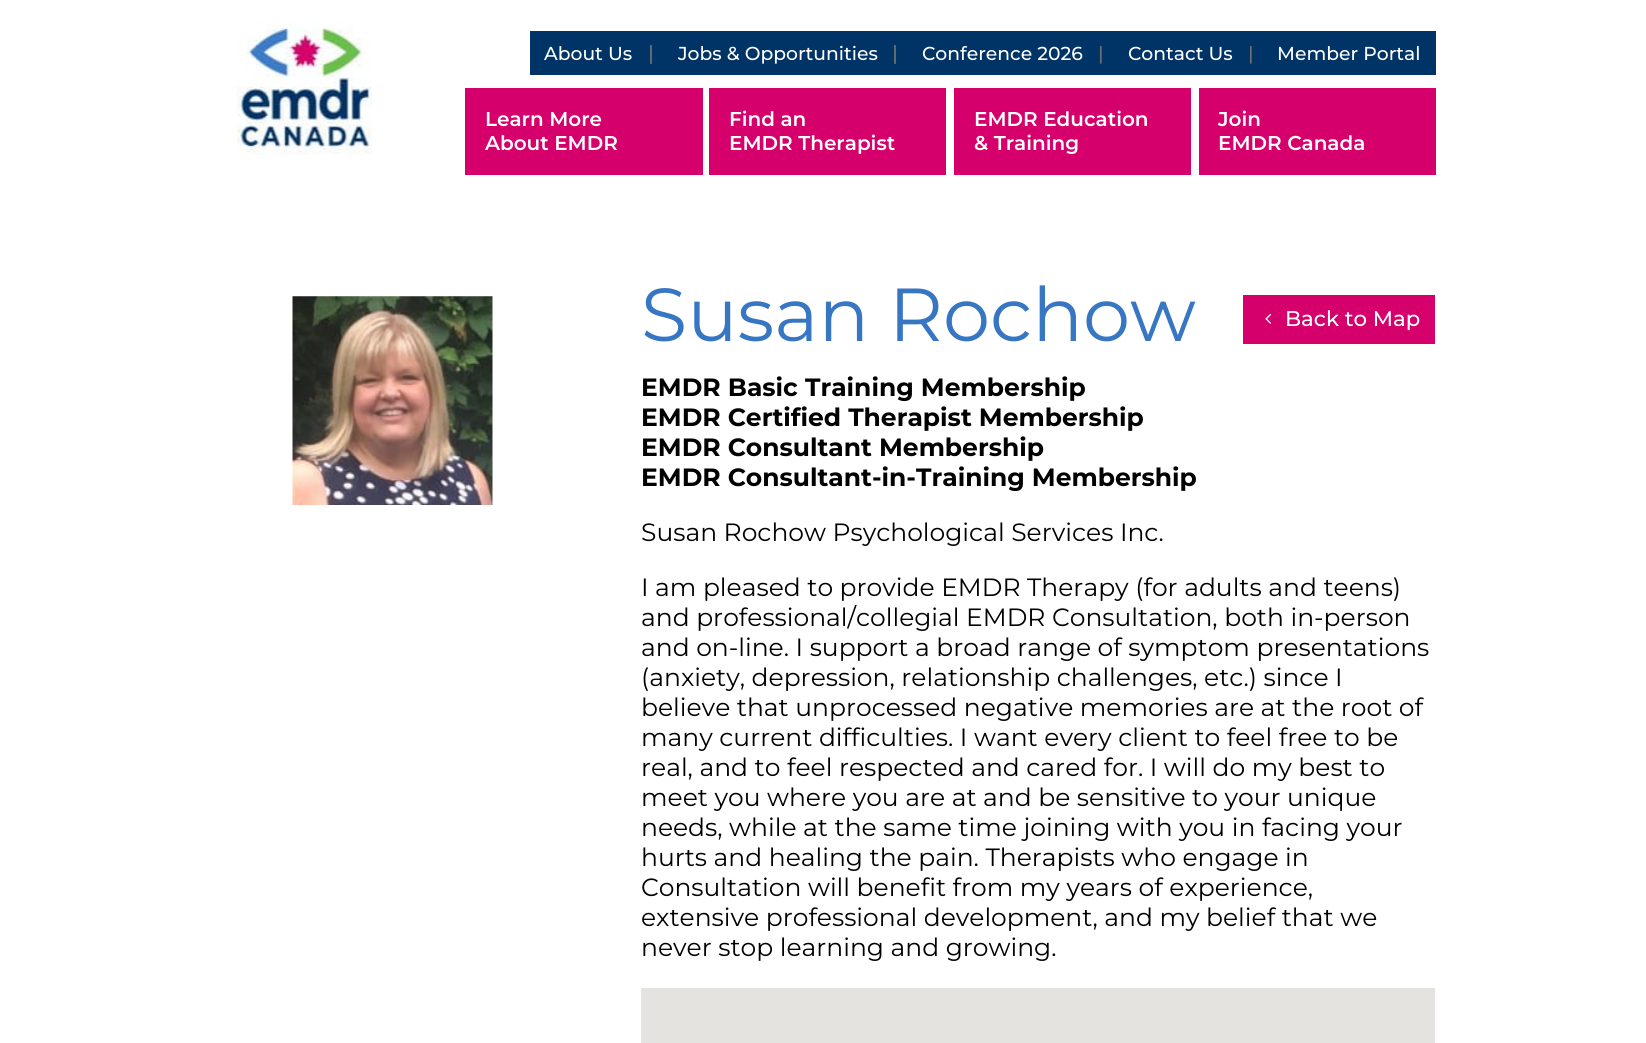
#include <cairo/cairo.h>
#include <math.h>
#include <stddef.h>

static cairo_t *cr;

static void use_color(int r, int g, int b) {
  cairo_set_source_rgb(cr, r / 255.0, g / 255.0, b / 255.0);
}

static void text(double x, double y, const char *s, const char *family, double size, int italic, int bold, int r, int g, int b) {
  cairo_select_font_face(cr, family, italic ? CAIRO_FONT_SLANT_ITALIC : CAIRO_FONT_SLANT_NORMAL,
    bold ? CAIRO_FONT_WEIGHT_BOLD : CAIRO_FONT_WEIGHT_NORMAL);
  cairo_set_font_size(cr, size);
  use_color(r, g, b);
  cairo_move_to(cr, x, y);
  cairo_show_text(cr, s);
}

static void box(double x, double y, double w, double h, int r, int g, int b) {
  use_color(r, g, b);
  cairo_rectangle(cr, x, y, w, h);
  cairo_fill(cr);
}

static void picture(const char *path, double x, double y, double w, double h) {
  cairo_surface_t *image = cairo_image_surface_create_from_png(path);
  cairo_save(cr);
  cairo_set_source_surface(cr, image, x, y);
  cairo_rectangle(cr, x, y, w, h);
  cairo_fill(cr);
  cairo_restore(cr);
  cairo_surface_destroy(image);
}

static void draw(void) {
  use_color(255, 255, 255);
  cairo_paint(cr);
  box(530, 31, 906, 44, 0, 51, 102);
  picture("img_01.png", 236, 22, 137, 133);
  box(465, 88, 238, 87, 214, 0, 109);
  box(709, 88, 237, 87, 214, 0, 109);
  box(954, 88, 237, 87, 214, 0, 109);
  box(1199, 88, 237, 87, 214, 0, 109);
  picture("img_02.png", 292, 296, 201, 209);
  box(1243, 295, 192, 49, 214, 0, 109);
  picture("img_03.png", 1265, 313, 7, 11);
  box(641, 988, 794, 55, 229, 227, 223);
  text(544, 60, "About Us", "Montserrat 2 Thin", 18.75, 0, 0, 255, 255, 255);
  text(648, 60, "|", "Montserrat 2 Thin", 20, 0, 0, 112, 112, 112);
  text(678, 60, "Jobs & Opportunities", "Montserrat 2 Thin", 18.75, 0, 0, 255, 255, 255);
  text(892, 60, "|", "Montserrat 2 Thin", 20, 0, 0, 112, 112, 112);
  text(922, 60, "Conference 2026", "Montserrat 2 Thin", 18.75, 0, 0, 255, 255, 255);
  text(1098, 60, "|", "Montserrat 2 Thin", 18.75, 0, 0, 112, 112, 112);
  text(1128, 60, "Contact Us", "Montserrat 2 Thin", 18.75, 0, 0, 255, 255, 255);
  text(1248, 60, "|", "Montserrat 2 Thin", 18.75, 0, 0, 112, 112, 112);
  text(1277, 60, "Member Portal", "Montserrat 2 Thin", 18.75, 0, 0, 255, 255, 255);
  text(485, 126, "Learn More", "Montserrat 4 Thin", 20, 0, 0, 255, 255, 255);
  text(485, 150, "About EMDR", "Montserrat 4 Thin", 20, 0, 0, 255, 255, 255);
  text(729, 126, "Find an", "Montserrat 4 Thin", 20, 0, 0, 255, 255, 255);
  text(729, 150, "EMDR Therapist", "Montserrat 4 Thin", 20, 0, 0, 255, 255, 255);
  text(974, 126, "EMDR Education", "Montserrat 4 Thin", 20, 0, 0, 255, 255, 255);
  text(974, 150, "& Training", "Montserrat 4 Thin", 20, 0, 0, 255, 255, 255);
  text(1218, 126, "Join", "Montserrat 4 Thin", 20, 0, 0, 255, 255, 255);
  text(1218, 150, "EMDR Canada", "Montserrat 4 Thin", 20, 0, 0, 255, 255, 255);
  text(641, 341, "Susan Rochow", "Montserrat Thin", 75, 0, 0, 55, 118, 195);
  text(1285, 326, "Back to Map", "Montserrat 2 Thin", 21.25, 0, 0, 255, 255, 255);
  text(641, 396, "EMDR Basic Training Membership", "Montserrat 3 Thin", 25, 0, 0, 0, 0, 0);
  text(641, 426, "EMDR Certified Therapist Membership", "Montserrat 3 Thin", 25, 0, 0, 0, 0, 0);
  text(641, 456, "EMDR Consultant Membership", "Montserrat 3 Thin", 25, 0, 0, 0, 0, 0);
  text(641, 486, "EMDR Consultant-in-Training Membership", "Montserrat 3 Thin", 25, 0, 0, 0, 0, 0);
  text(641, 541, "Susan Rochow Psychological Services Inc.", "Montserrat Thin", 25, 0, 0, 0, 0, 0);
  text(641, 596, "I am pleased to provide EMDR Therapy (for adults and teens)", "Montserrat Thin", 25, 0, 0, 0, 0, 0);
  text(641, 626, "and professional/collegial EMDR Consultation, both in-person", "Montserrat Thin", 25, 0, 0, 0, 0, 0);
  text(641, 656, "and on-line. I support a broad range of symptom presentations", "Montserrat Thin", 25, 0, 0, 0, 0, 0);
  text(641, 686, "(anxiety, depression, relationship challenges, etc.) since I", "Montserrat Thin", 25, 0, 0, 0, 0, 0);
  text(641, 716, "believe that unprocessed negative memories are at the root of", "Montserrat Thin", 25, 0, 0, 0, 0, 0);
  text(641, 746, "many current difficulties. I want every client to feel free to be", "Montserrat Thin", 25, 0, 0, 0, 0, 0);
  text(641, 776, "real, and to feel respected and cared for. I will do my best to", "Montserrat Thin", 25, 0, 0, 0, 0, 0);
  text(641, 806, "meet you where you are at and be sensitive to your unique", "Montserrat Thin", 25, 0, 0, 0, 0, 0);
  text(641, 836, "needs, while at the same time joining with you in facing your", "Montserrat Thin", 25, 0, 0, 0, 0, 0);
  text(641, 866, "hurts and healing the pain. Therapists who engage in", "Montserrat Thin", 25, 0, 0, 0, 0, 0);
  text(641, 896, "Consultation will benefit from my years of experience,", "Montserrat Thin", 25, 0, 0, 0, 0, 0);
  text(641, 926, "extensive professional development, and my belief that we", "Montserrat Thin", 25, 0, 0, 0, 0, 0);
  text(641, 956, "never stop learning and growing.", "Montserrat Thin", 25, 0, 0, 0, 0, 0);
}

int main(void) {
  cairo_surface_t *surface = cairo_image_surface_create(CAIRO_FORMAT_RGB24, 1646, 1043);
  cr = cairo_create(surface);
  cairo_font_options_t *options = cairo_font_options_create();
  cairo_font_options_set_hint_metrics(options, CAIRO_HINT_METRICS_OFF);
  cairo_font_options_set_hint_style(options, CAIRO_HINT_STYLE_NONE);
  cairo_set_font_options(cr, options);
  cairo_set_miter_limit(cr, 4);
  draw();
  cairo_surface_write_to_png(surface, "out.png");
  cairo_font_options_destroy(options);
  cairo_destroy(cr);
  cairo_surface_destroy(surface);
  return 0;
}
